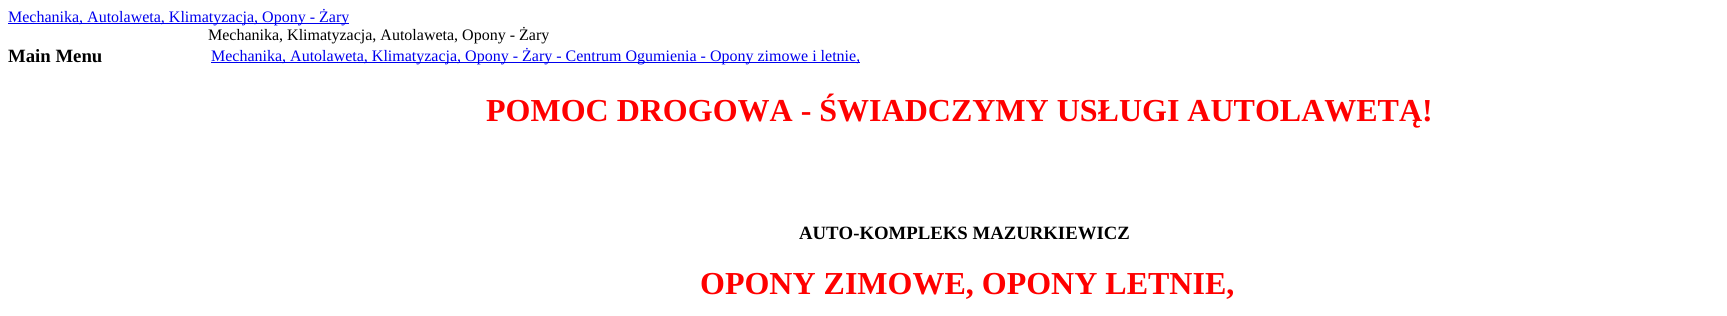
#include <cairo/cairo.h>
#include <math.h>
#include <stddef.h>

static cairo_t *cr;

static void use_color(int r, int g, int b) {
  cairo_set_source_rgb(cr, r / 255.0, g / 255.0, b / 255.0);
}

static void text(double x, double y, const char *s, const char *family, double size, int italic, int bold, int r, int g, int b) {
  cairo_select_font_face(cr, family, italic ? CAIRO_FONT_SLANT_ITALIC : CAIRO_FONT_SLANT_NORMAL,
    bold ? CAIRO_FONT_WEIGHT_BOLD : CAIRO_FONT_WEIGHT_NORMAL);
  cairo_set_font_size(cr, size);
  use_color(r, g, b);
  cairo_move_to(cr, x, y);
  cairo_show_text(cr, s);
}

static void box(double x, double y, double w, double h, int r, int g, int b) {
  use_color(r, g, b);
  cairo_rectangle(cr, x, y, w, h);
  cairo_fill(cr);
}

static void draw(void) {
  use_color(255, 255, 255);
  cairo_paint(cr);
  box(8, 23, 341, 1, 0, 0, 238);
  box(211, 62, 649, 1, 0, 0, 238);
  text(8, 22, "Mechanika, Autolaweta, Klimatyzacja, Opony - Żary", "Liberation Serif", 16, 0, 0, 0, 0, 238);
  text(8, 62, "Main Menu", "Liberation Serif", 18.75, 0, 1, 0, 0, 0);
  text(208, 40, "Mechanika, Klimatyzacja, Autolaweta, Opony - Żary", "Liberation Serif", 16, 0, 0, 0, 0, 0);
  text(211, 61, "Mechanika, Autolaweta, Klimatyzacja, Opony - Żary - Centrum Ogumienia - Opony zimowe i letnie,", "Liberation Serif", 16, 0, 0, 0, 0, 238);
  text(486, 121, "POMOC DROGOWA - ŚWIADCZYMY USŁUGI AUTOLAWETĄ!", "Liberation Serif", 32, 0, 1, 255, 0, 0);
  text(799, 239, "AUTO-KOMPLEKS MAZURKIEWICZ", "Liberation Serif", 18.75, 0, 1, 0, 0, 0);
  text(700, 294, "OPONY ZIMOWE, OPONY LETNIE,", "Liberation Serif", 32, 0, 1, 255, 0, 0);
}

int main(void) {
  cairo_surface_t *surface = cairo_image_surface_create(CAIRO_FORMAT_RGB24, 1727, 316);
  cr = cairo_create(surface);
  cairo_font_options_t *options = cairo_font_options_create();
  cairo_font_options_set_hint_metrics(options, CAIRO_HINT_METRICS_OFF);
  cairo_font_options_set_hint_style(options, CAIRO_HINT_STYLE_NONE);
  cairo_set_font_options(cr, options);
  cairo_set_miter_limit(cr, 4);
  draw();
  cairo_surface_write_to_png(surface, "out.png");
  cairo_font_options_destroy(options);
  cairo_destroy(cr);
  cairo_surface_destroy(surface);
  return 0;
}
